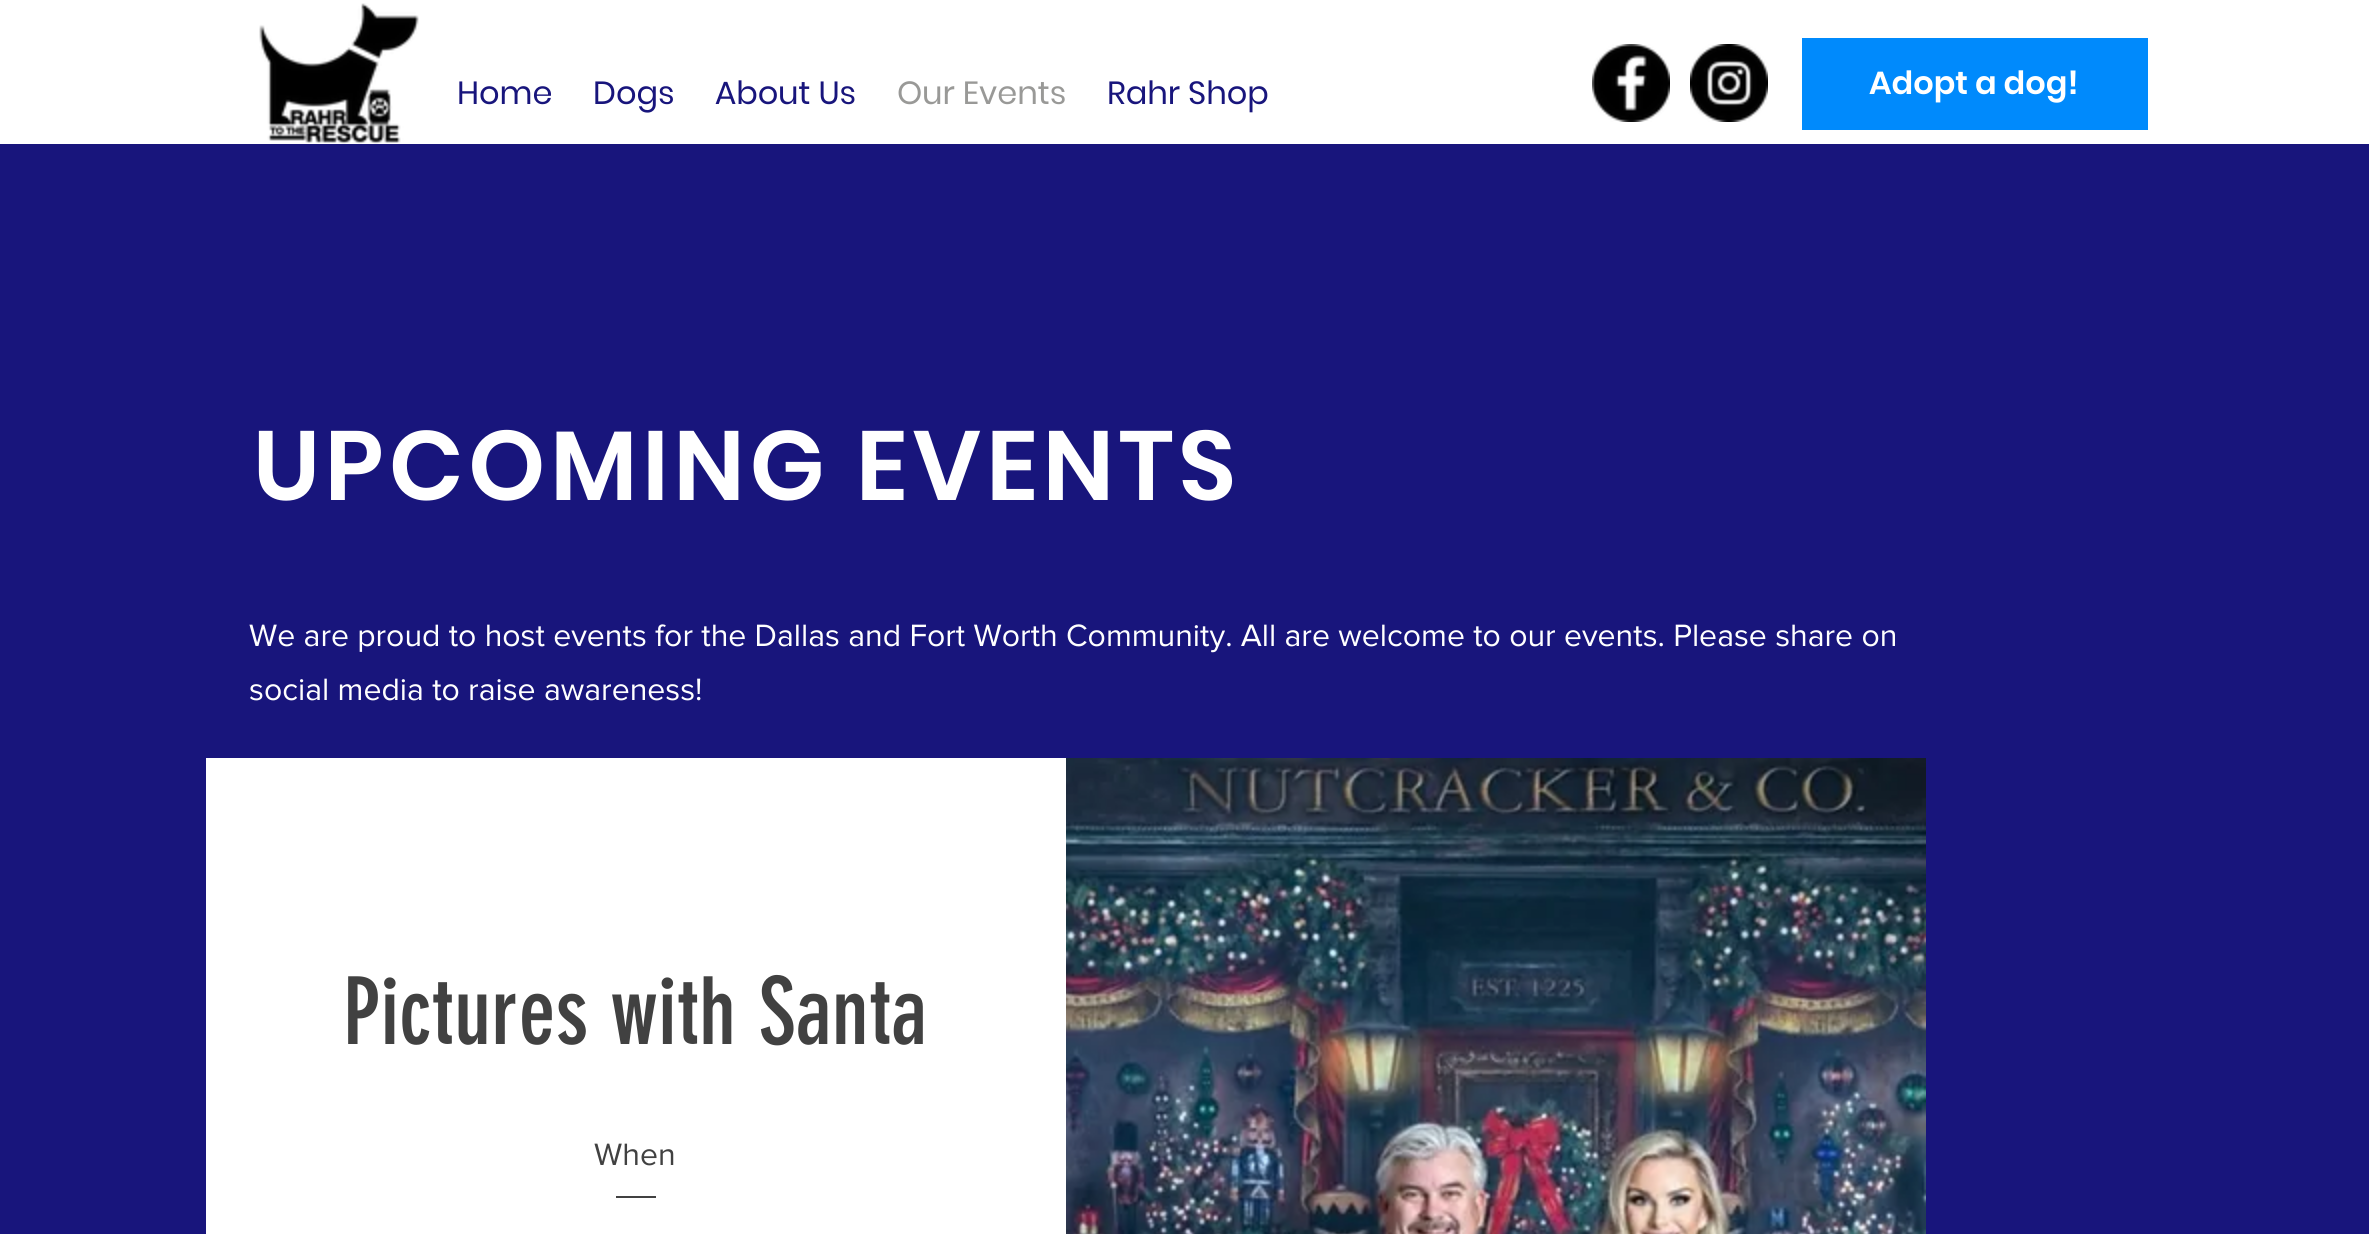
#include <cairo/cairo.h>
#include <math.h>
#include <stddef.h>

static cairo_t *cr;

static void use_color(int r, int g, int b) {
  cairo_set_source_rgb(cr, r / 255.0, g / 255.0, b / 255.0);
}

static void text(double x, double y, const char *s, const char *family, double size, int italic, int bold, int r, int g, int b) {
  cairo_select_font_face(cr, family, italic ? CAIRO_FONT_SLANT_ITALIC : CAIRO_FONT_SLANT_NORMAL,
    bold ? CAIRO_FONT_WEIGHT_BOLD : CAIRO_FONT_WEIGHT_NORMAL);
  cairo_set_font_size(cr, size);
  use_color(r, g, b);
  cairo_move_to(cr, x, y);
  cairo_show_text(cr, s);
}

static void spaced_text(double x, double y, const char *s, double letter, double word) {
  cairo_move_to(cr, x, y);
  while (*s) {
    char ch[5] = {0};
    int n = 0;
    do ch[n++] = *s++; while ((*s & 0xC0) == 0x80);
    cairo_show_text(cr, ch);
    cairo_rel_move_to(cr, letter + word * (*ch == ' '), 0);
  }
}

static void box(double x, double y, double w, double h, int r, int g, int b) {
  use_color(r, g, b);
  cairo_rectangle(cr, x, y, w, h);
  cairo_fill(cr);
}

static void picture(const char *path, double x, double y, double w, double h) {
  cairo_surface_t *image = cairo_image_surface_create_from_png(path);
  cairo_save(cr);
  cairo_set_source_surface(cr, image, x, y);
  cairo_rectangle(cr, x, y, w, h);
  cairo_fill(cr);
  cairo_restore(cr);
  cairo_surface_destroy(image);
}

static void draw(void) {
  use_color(24, 21, 124);
  cairo_paint(cr);
  box(0, 0, 2369, 144, 255, 255, 255);
  picture("img_01.png", 259, 3, 160, 141);
  picture("img_02.png", 1592, 44, 78, 78);
  picture("img_03.png", 1690, 44, 78, 78);
  box(1802, 38, 346, 92, 0, 138, 252);
  box(206, 758, 860, 476, 255, 255, 255);
  box(616, 1196, 40, 2, 65, 65, 65);
  picture("img_04.png", 1066, 758, 860, 476);
  text(457, 104, "Home", "Poppins", 32, 0, 0, 24, 21, 124);
  text(593, 104, "Dogs", "Poppins", 32, 0, 0, 24, 21, 124);
  text(715, 104, "About Us", "Poppins", 32, 0, 0, 24, 21, 124);
  text(897, 104, "Our Events", "Poppins", 32, 0, 0, 153, 153, 151);
  text(1107, 104, "Rahr Shop", "Poppins", 32, 0, 0, 24, 21, 124);
  text(1869, 94, "Adopt a dog!", "Poppins SemiBold", 32, 0, 0, 255, 255, 255);
  cairo_set_font_size(cr, 98);
  spaced_text(253, 500, "UPCOMING EVENTS", 4.9, 0);
  text(249, 646, "We are proud to host events for the Dallas and Fort Worth Community. All are welcome to our events. Please share on", "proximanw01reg", 32, 0, 0, 255, 255, 255);
  text(249, 700, "social media to raise awareness!", "proximanw01reg", 32, 0, 0, 255, 255, 255);
  text(343, 1044, "Pictures with Santa", "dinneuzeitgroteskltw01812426", 92, 0, 0, 65, 65, 65);
  text(594, 1165, "When", "proximanw01reg", 32, 0, 0, 65, 65, 65);
}

int main(void) {
  cairo_surface_t *surface = cairo_image_surface_create(CAIRO_FORMAT_RGB24, 2369, 1234);
  cr = cairo_create(surface);
  cairo_font_options_t *options = cairo_font_options_create();
  cairo_font_options_set_hint_metrics(options, CAIRO_HINT_METRICS_OFF);
  cairo_font_options_set_hint_style(options, CAIRO_HINT_STYLE_NONE);
  cairo_set_font_options(cr, options);
  cairo_set_miter_limit(cr, 4);
  draw();
  cairo_surface_write_to_png(surface, "out.png");
  cairo_font_options_destroy(options);
  cairo_destroy(cr);
  cairo_surface_destroy(surface);
  return 0;
}
